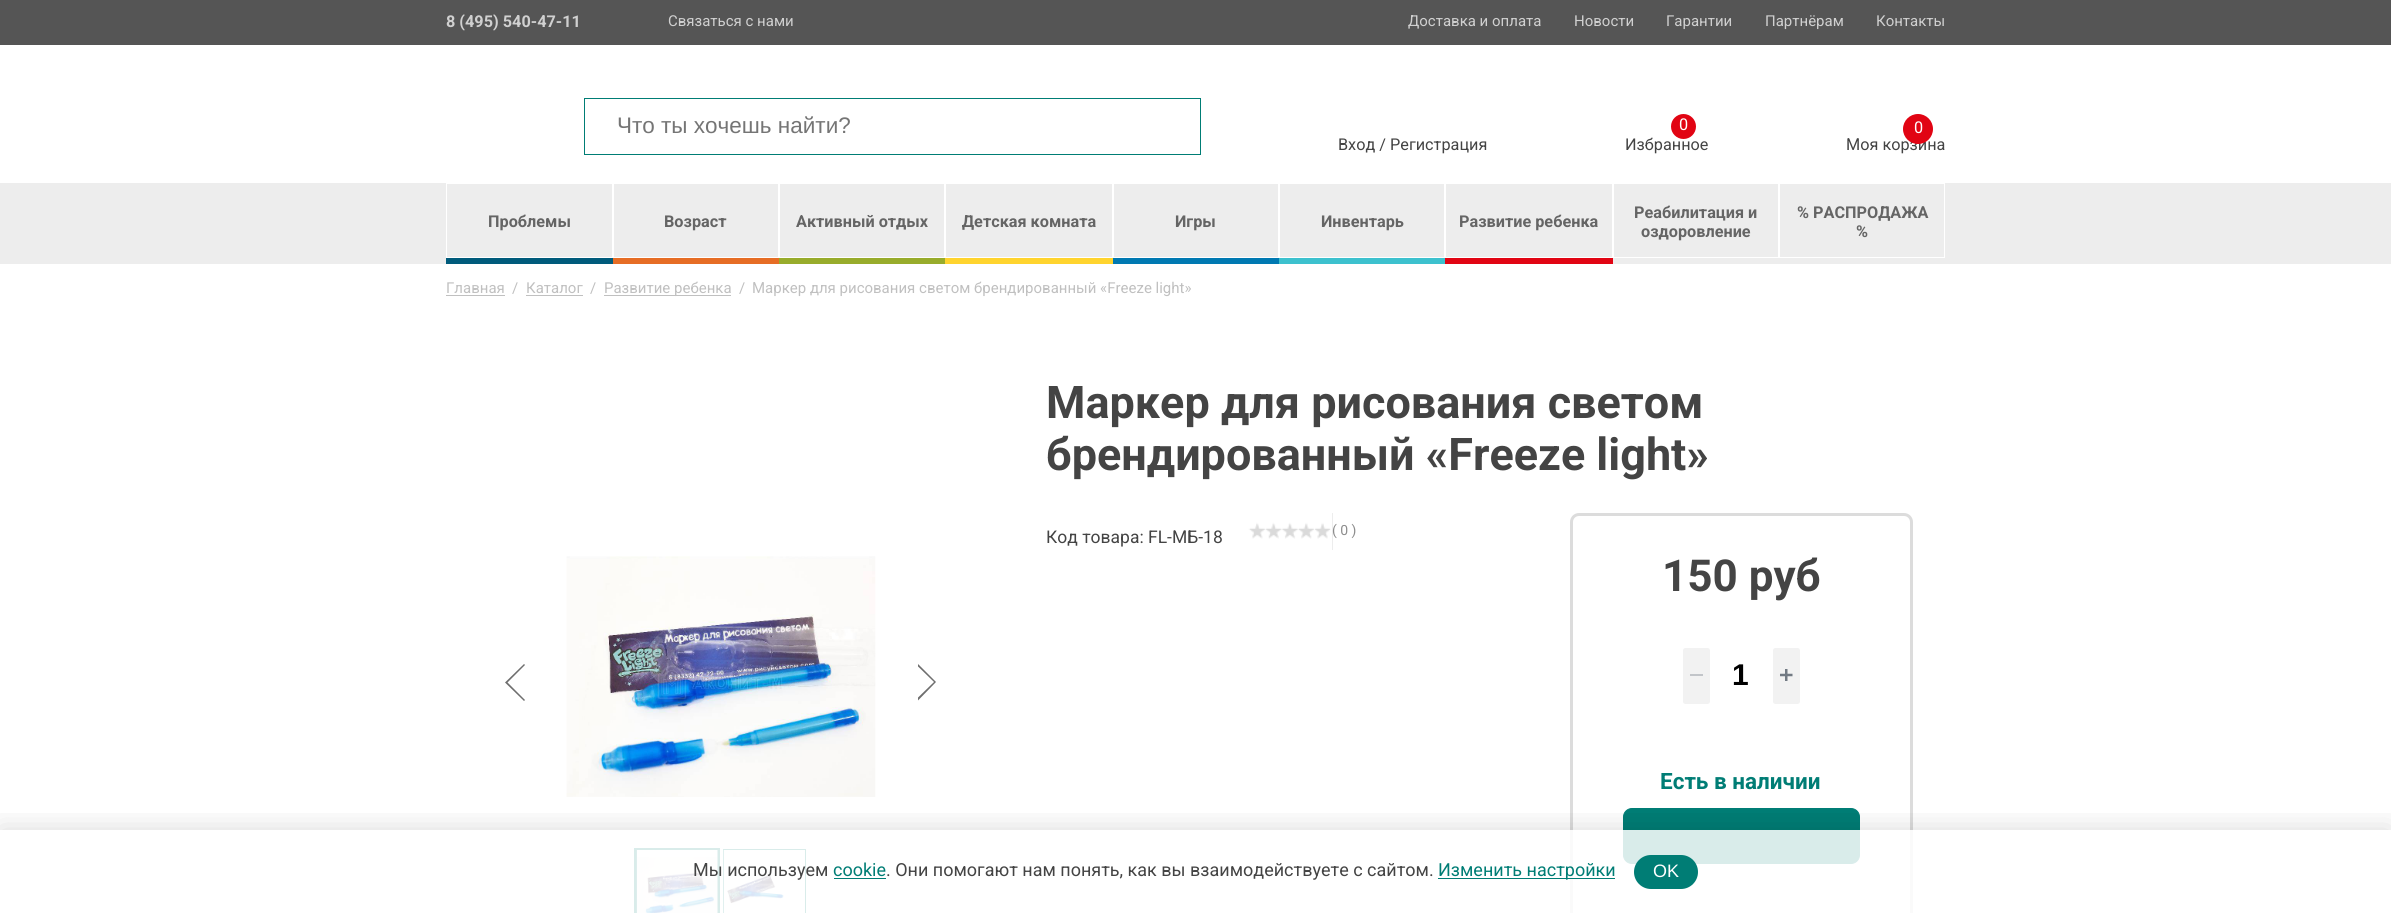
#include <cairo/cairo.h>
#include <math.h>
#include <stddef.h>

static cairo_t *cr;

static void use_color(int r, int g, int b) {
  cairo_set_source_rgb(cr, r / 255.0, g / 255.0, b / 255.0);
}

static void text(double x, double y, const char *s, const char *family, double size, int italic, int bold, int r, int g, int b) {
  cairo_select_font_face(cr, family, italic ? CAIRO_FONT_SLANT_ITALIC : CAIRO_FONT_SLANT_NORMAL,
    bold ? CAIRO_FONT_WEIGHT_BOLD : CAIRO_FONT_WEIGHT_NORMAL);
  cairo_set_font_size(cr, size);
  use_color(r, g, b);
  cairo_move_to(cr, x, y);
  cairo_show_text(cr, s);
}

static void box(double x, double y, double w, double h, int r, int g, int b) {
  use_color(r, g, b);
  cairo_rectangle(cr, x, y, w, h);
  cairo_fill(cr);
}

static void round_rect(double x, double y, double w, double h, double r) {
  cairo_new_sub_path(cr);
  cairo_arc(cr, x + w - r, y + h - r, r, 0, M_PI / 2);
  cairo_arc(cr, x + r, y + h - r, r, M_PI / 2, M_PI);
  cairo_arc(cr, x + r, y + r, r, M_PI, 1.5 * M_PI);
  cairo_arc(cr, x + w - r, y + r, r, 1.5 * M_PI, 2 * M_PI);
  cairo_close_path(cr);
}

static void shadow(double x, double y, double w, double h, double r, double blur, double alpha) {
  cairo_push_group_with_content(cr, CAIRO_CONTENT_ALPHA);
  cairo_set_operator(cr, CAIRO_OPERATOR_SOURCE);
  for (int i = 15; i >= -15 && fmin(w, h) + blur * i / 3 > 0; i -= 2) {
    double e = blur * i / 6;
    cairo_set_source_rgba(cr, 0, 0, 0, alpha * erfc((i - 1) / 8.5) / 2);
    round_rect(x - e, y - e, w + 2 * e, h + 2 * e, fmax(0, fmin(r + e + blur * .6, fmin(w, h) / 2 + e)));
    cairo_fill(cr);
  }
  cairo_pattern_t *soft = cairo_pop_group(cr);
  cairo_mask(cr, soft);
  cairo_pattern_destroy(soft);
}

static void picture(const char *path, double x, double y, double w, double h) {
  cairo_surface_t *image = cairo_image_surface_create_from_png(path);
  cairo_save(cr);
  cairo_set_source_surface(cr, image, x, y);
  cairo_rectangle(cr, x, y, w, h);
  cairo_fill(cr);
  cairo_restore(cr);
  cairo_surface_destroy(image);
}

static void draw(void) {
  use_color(255, 255, 255);
  cairo_paint(cr);
  box(0, 0, 2391, 45, 85, 85, 85);
  cairo_rectangle(cr, 584.5, 98.5, 616, 56);
  use_color(0, 125, 117);
  cairo_set_line_width(cr, 1);
  cairo_stroke(cr);
  box(0, 183, 2391, 81, 237, 237, 237);
  box(446, 258, 167, 6, 0, 91, 123);
  cairo_rectangle(cr, 446.5, 183.5, 166, 74);
  use_color(255, 255, 255);
  cairo_stroke(cr);
  box(613, 258, 166, 6, 230, 109, 37);
  cairo_rectangle(cr, 613.5, 183.5, 165, 74);
  use_color(255, 255, 255);
  cairo_stroke(cr);
  box(779, 258, 166, 6, 152, 172, 44);
  cairo_rectangle(cr, 779.5, 183.5, 165, 74);
  use_color(255, 255, 255);
  cairo_stroke(cr);
  box(945, 258, 168, 6, 255, 212, 46);
  cairo_rectangle(cr, 945.5, 183.5, 167, 74);
  use_color(255, 255, 255);
  cairo_stroke(cr);
  box(1113, 258, 166, 6, 0, 121, 178);
  cairo_rectangle(cr, 1113.5, 183.5, 165, 74);
  use_color(255, 255, 255);
  cairo_stroke(cr);
  box(1279, 258, 166, 6, 61, 193, 206);
  cairo_rectangle(cr, 1279.5, 183.5, 165, 74);
  use_color(255, 255, 255);
  cairo_stroke(cr);
  box(1445, 258, 168, 6, 225, 4, 19);
  cairo_rectangle(cr, 1445.5, 183.5, 167, 74);
  use_color(255, 255, 255);
  cairo_stroke(cr);
  cairo_rectangle(cr, 1613.5, 183.5, 165, 74);
  cairo_stroke(cr);
  cairo_rectangle(cr, 1779.5, 183.5, 165, 74);
  cairo_stroke(cr);
  box(446, 295, 59, 1, 192, 192, 192);
  box(526, 295, 57, 1, 192, 192, 192);
  box(604, 295, 127, 1, 192, 192, 192);
  use_color(110, 110, 110);
  cairo_set_fill_rule(cr, CAIRO_FILL_RULE_EVEN_ODD);
  cairo_new_path(cr);
  cairo_move_to(cr, 525, 700);
  cairo_line_to(cr, 507.5, 682.5);
  cairo_line_to(cr, 525, 665);
  cairo_line_to(cr, 524, 664);
  cairo_line_to(cr, 505, 682.5);
  cairo_line_to(cr, 524, 701);
  cairo_close_path(cr);
  cairo_fill(cr);
  picture("img_01.png", 566, 556, 310, 241);
  cairo_save(cr);
  cairo_set_fill_rule(cr, CAIRO_FILL_RULE_WINDING);
  cairo_rectangle(cr, 918, 664, 20, 37);
  cairo_clip(cr);
  cairo_set_fill_rule(cr, CAIRO_FILL_RULE_EVEN_ODD);
  cairo_new_path(cr);
  cairo_move_to(cr, 916, 664.5);
  cairo_line_to(cr, 934, 682);
  cairo_line_to(cr, 916, 699.5);
  cairo_line_to(cr, 917.5, 701);
  cairo_line_to(cr, 936, 682);
  cairo_line_to(cr, 917.5, 663.5);
  cairo_close_path(cr);
  cairo_fill(cr);
  cairo_restore(cr);
  cairo_rectangle(cr, 635.5, 849.5, 83, 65);
  use_color(0, 125, 117);
  cairo_set_line_width(cr, 3);
  cairo_stroke(cr);
  picture("img_02.png", 636, 850, 82, 63);
  cairo_rectangle(cr, 723.5, 849.5, 82, 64);
  cairo_set_line_width(cr, 1);
  cairo_stroke(cr);
  picture("img_03.png", 723, 850, 61, 63);
  box(1248, 513, 85, 37, 218, 218, 218);
  picture("img_04.png", 1248, 513, 85, 37);
  round_rect(1571.5, 514.5, 340, 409, 7.5);
  use_color(220, 220, 220);
  cairo_set_line_width(cr, 3);
  cairo_stroke(cr);
  use_color(242, 242, 242);
  round_rect(1683, 648, 27, 56, 2.5);
  cairo_fill(cr);
  box(1690, 674, 13, 2, 194, 197, 201);
  use_color(242, 242, 242);
  round_rect(1773, 648, 27, 56, 2.5);
  cairo_fill(cr);
  picture("img_05.png", 1780, 669, 13, 12);
  use_color(0, 125, 117);
  round_rect(1623.5, 808.5, 236, 55, 8.5);
  cairo_fill_preserve(cr);
  cairo_set_line_width(cr, 1);
  cairo_stroke(cr);
  cairo_save(cr);
  cairo_set_fill_rule(cr, CAIRO_FILL_RULE_WINDING);
  cairo_rectangle(cr, 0, 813, 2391, 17);
  cairo_clip(cr);
  use_color(0, 0, 0);
  shadow(0, 830, 2391, 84, 0, 15.5, 0.15);
  cairo_restore(cr);
  cairo_set_source_rgba(cr, 1, 1, 1, 0.85);
  cairo_rectangle(cr, 634, 830, 1279, 83);
  cairo_fill(cr);
  box(834, 878, 52, 1, 0, 125, 117);
  box(1438, 878, 177, 1, 0, 125, 117);
  round_rect(1634, 855, 64, 34, 17);
  cairo_fill(cr);
  text(446, 27, "8 (495) 540-47-11", "Roboto", 16.25, 0, 1, 208, 208, 208);
  text(668, 26, "Связаться с нами", "Roboto", 15, 0, 0, 208, 208, 208);
  text(1408, 26, "Доставка и оплата", "Roboto", 15, 0, 0, 208, 208, 208);
  text(1574, 26, "Новости", "Roboto", 15, 0, 0, 208, 208, 208);
  text(1666, 26, "Гарантии", "Roboto", 15, 0, 0, 208, 208, 208);
  text(1765, 26, "Партнёрам", "Roboto", 15, 0, 0, 208, 208, 208);
  text(1876, 26, "Контакты", "Roboto", 15, 0, 0, 208, 208, 208);
  text(617, 133, "Что ты хочешь найти?", "Liberation Sans", 22.5, 0, 0, 117, 117, 117);
  text(1338, 150, "Вход / Регистрация", "Roboto", 16.25, 0, 0, 68, 68, 68);
  text(1625, 150, "Избранное", "Roboto", 16.25, 0, 0, 68, 68, 68);
  use_color(225, 4, 19);
  cairo_new_path(cr);
  cairo_arc(cr, 1683.5, 126.5, 12.5, 0, 2 * M_PI);
  cairo_fill(cr);
  text(1679, 130, "0", "Roboto", 16.25, 0, 0, 255, 255, 255);
  text(1846, 150, "Моя корзина", "Roboto", 16.25, 0, 0, 68, 68, 68);
  use_color(225, 4, 19);
  cairo_new_path(cr);
  cairo_arc(cr, 1918, 129, 15, 0, 2 * M_PI);
  cairo_fill(cr);
  text(1914, 133, "0", "Roboto", 16.25, 0, 0, 255, 255, 255);
  text(488, 227, "Проблемы", "Roboto", 16.25, 0, 1, 101, 101, 101);
  text(664, 227, "Возраст", "Roboto", 16.25, 0, 1, 101, 101, 101);
  text(796, 227, "Активный отдых", "Roboto", 16.25, 0, 1, 101, 101, 101);
  text(962, 227, "Детская комната", "Roboto", 16.25, 0, 1, 101, 101, 101);
  text(1175, 227, "Игры", "Roboto", 16.25, 0, 1, 101, 101, 101);
  text(1321, 227, "Инвентарь", "Roboto", 16.25, 0, 1, 101, 101, 101);
  text(1459, 227, "Развитие ребенка", "Roboto", 16.25, 0, 1, 101, 101, 101);
  text(1634, 218, "Реабилитация и", "Roboto", 16.25, 0, 1, 101, 101, 101);
  text(1641, 237, "оздоровление", "Roboto", 16.25, 0, 1, 101, 101, 101);
  text(1797, 218, "% РАСПРОДАЖА", "Roboto", 16.25, 0, 1, 101, 101, 101);
  text(1856, 237, "%", "Roboto", 16.25, 0, 1, 101, 101, 101);
  text(446, 293, "Главная", "Roboto", 15, 0, 0, 192, 192, 192);
  text(512, 293, "/", "Roboto", 15, 0, 0, 192, 192, 192);
  text(526, 293, "Каталог", "Roboto", 15, 0, 0, 192, 192, 192);
  text(590, 293, "/", "Roboto", 15, 0, 0, 192, 192, 192);
  text(604, 293, "Развитие ребенка", "Roboto", 15, 0, 0, 192, 192, 192);
  text(739, 293, "/", "Roboto", 15, 0, 0, 192, 192, 192);
  text(752, 293, "Маркер для рисования светом брендированный «Freeze light»", "Roboto", 15, 0, 0, 192, 192, 192);
  text(1046, 418, "Маркер для рисования светом", "Roboto", 45, 0, 1, 68, 68, 68);
  text(1046, 470, "брендированный «Freeze light»", "Roboto", 45, 0, 1, 68, 68, 68);
  text(1046, 543, "Код товара: FL-МБ-18", "Roboto", 17.5, 0, 0, 68, 68, 68);
  text(1332, 535, "( 0 )", "Roboto", 14, 0, 0, 141, 141, 141);
  text(1662, 591, "150 руб", "Roboto", 44, 0, 1, 68, 68, 68);
  text(1732, 685, "1", "Liberation Sans", 30, 0, 1, 0, 0, 0);
  text(1660, 789, "Есть в наличии", "Roboto", 22.5, 0, 1, 0, 125, 117);
  text(693, 876, "Мы используем", "Roboto", 18, 0, 0, 68, 68, 68);
  text(833, 876, "cookie", "Roboto", 18, 0, 0, 0, 125, 117);
  text(886, 876, ". Они помогают нам понять, как вы взаимодействуете с сайтом.", "Roboto", 18, 0, 0, 68, 68, 68);
  text(1438, 876, "Изменить настройки", "Roboto", 18, 0, 0, 0, 125, 117);
  text(1653, 877, "OK", "Liberation Sans", 18, 0, 0, 255, 255, 255);
}

int main(void) {
  cairo_surface_t *surface = cairo_image_surface_create(CAIRO_FORMAT_RGB24, 2391, 913);
  cr = cairo_create(surface);
  cairo_font_options_t *options = cairo_font_options_create();
  cairo_font_options_set_hint_metrics(options, CAIRO_HINT_METRICS_OFF);
  cairo_font_options_set_hint_style(options, CAIRO_HINT_STYLE_NONE);
  cairo_set_font_options(cr, options);
  cairo_set_miter_limit(cr, 4);
  draw();
  cairo_surface_write_to_png(surface, "out.png");
  cairo_font_options_destroy(options);
  cairo_destroy(cr);
  cairo_surface_destroy(surface);
  return 0;
}
